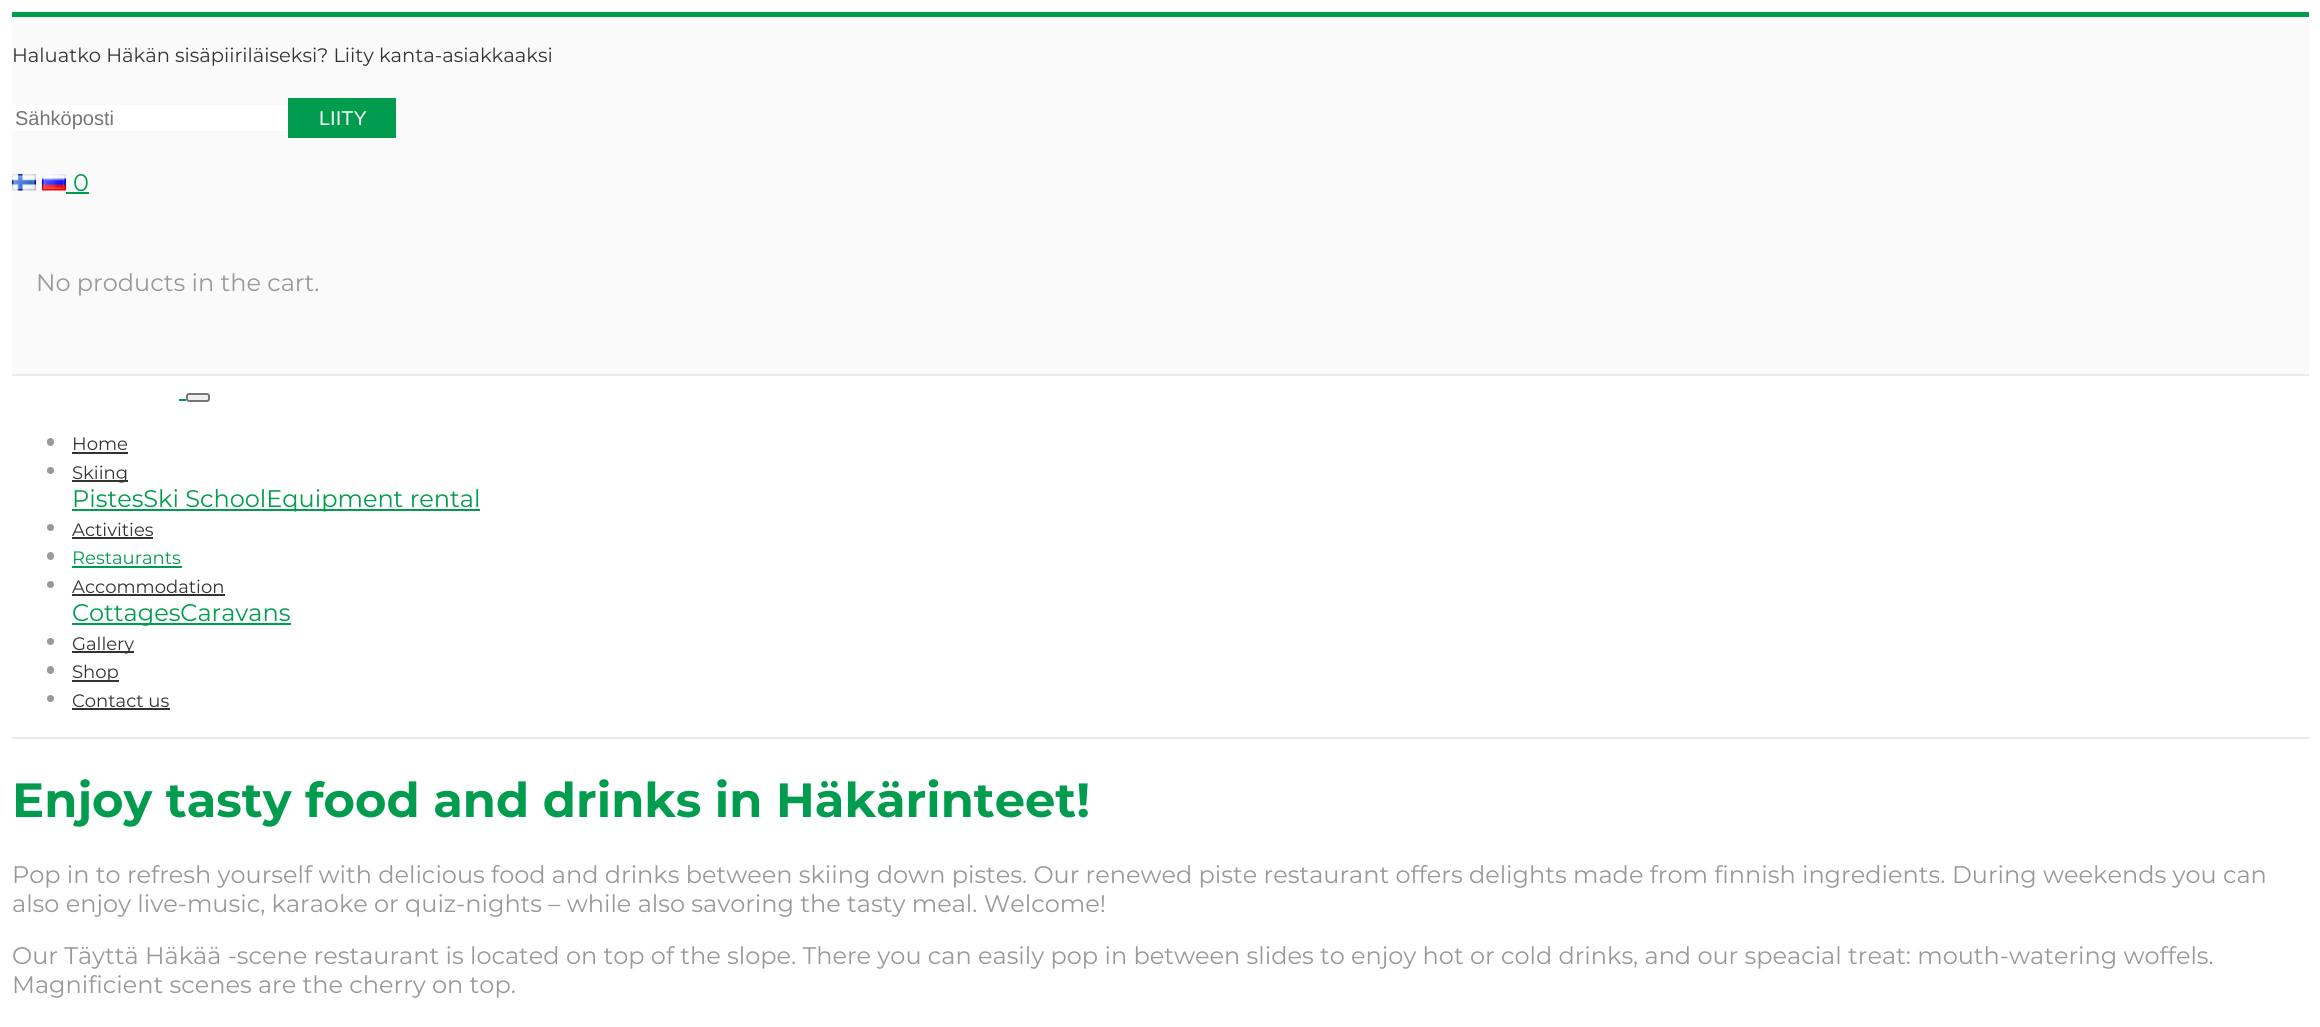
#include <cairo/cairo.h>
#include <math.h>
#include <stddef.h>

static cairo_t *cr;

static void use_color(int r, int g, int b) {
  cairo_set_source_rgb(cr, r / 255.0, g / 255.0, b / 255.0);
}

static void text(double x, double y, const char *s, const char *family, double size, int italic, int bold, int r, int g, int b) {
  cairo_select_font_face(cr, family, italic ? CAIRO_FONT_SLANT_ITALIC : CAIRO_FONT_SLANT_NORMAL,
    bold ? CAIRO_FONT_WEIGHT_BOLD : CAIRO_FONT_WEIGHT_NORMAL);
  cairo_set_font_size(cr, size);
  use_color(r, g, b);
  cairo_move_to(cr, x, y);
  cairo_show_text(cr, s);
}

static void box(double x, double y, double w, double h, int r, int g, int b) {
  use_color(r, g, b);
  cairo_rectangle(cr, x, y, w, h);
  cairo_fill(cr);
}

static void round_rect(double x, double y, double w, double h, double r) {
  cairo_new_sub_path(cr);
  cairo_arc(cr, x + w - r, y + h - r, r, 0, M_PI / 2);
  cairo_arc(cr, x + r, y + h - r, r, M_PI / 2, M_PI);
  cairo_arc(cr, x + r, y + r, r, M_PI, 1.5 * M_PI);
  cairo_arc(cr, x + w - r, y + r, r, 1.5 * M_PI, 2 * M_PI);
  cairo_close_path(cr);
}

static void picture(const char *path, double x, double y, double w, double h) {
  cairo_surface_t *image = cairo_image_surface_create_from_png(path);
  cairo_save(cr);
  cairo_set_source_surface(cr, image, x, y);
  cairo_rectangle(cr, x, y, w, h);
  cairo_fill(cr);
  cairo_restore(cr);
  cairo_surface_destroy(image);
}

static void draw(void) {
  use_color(255, 255, 255);
  cairo_paint(cr);
  box(12, 17, 2297, 357, 250, 250, 250);
  box(12, 12, 2297, 5, 1, 156, 78);
  box(12, 105, 276, 26, 255, 255, 255);
  box(288, 98, 108, 40, 1, 156, 78);
  picture("img_01.png", 12, 174, 24, 17);
  picture("img_02.png", 42, 174, 24, 17);
  box(66, 192, 23, 2, 1, 156, 78);
  box(12, 374, 2297, 2, 235, 235, 235);
  box(12, 737, 2297, 2, 235, 235, 235);
  box(179, 399, 7, 2, 1, 156, 78);
  use_color(239, 239, 239);
  round_rect(187, 394, 22, 7, 2);
  cairo_fill_preserve(cr);
  use_color(118, 118, 118);
  cairo_stroke(cr);
  use_color(153, 153, 153);
  round_rect(47, 438, 7, 8, 3.5);
  cairo_fill(cr);
  box(72, 452, 56, 2, 51, 51, 51);
  use_color(153, 153, 153);
  cairo_arc(cr, 50.5, 470.5, 3.5, 0, 2 * M_PI);
  cairo_fill(cr);
  box(72, 480, 56, 2, 51, 51, 51);
  box(72, 509, 408, 2, 1, 156, 78);
  use_color(153, 153, 153);
  cairo_arc(cr, 50.5, 527.5, 3.5, 0, 2 * M_PI);
  cairo_fill(cr);
  box(72, 537, 81, 2, 51, 51, 51);
  use_color(153, 153, 153);
  round_rect(47, 552, 7, 8, 3.5);
  cairo_fill(cr);
  box(72, 566, 110, 2, 1, 156, 78);
  use_color(153, 153, 153);
  cairo_arc(cr, 50.5, 584.5, 3.5, 0, 2 * M_PI);
  cairo_fill(cr);
  box(72, 594, 153, 2, 51, 51, 51);
  box(72, 623, 219, 2, 1, 156, 78);
  use_color(153, 153, 153);
  cairo_arc(cr, 50.5, 641.5, 3.5, 0, 2 * M_PI);
  cairo_fill(cr);
  box(72, 651, 62, 2, 51, 51, 51);
  use_color(153, 153, 153);
  round_rect(47, 666, 7, 8, 3.5);
  cairo_fill(cr);
  box(72, 680, 47, 2, 51, 51, 51);
  use_color(153, 153, 153);
  cairo_arc(cr, 50.5, 698.5, 3.5, 0, 2 * M_PI);
  cairo_fill(cr);
  box(72, 708, 98, 2, 51, 51, 51);
  text(12, 62, "Haluatko Häkän sisäpiiriläiseksi? Liity kanta-asiakkaaksi", "Montserrat", 19.5, 0, 0, 51, 51, 51);
  text(15, 125, "Sähköposti", "Liberation Sans", 20, 0, 0, 117, 117, 117);
  text(319, 125, "LIITY", "Liberation Sans", 20, 0, 0, 255, 255, 255);
  text(73, 191, "0", "Montserrat", 24, 0, 0, 1, 156, 78);
  text(36, 291, "No products in the cart.", "Montserrat", 24, 0, 0, 153, 153, 153);
  text(72, 450, "Home", "Montserrat", 18, 0, 0, 51, 51, 51);
  text(72, 479, "Skiing", "Montserrat", 18, 0, 0, 51, 51, 51);
  text(72, 507, "PistesSki SchoolEquipment rental", "Montserrat", 24, 0, 0, 1, 156, 78);
  text(72, 536, "Activities", "Montserrat", 18, 0, 0, 51, 51, 51);
  text(72, 564, "Restaurants", "Montserrat", 18, 0, 0, 1, 156, 78);
  text(72, 593, "Accommodation", "Montserrat", 18, 0, 0, 51, 51, 51);
  text(72, 621, "CottagesCaravans", "Montserrat", 24, 0, 0, 1, 156, 78);
  text(72, 650, "Gallery", "Montserrat", 18, 0, 0, 51, 51, 51);
  text(72, 678, "Shop", "Montserrat", 18, 0, 0, 51, 51, 51);
  text(72, 707, "Contact us", "Montserrat", 18, 0, 0, 51, 51, 51);
  text(12, 817, "Enjoy tasty food and drinks in Häkärinteet!", "Montserrat", 48, 0, 1, 1, 156, 78);
  text(12, 883, "Pop in to refresh yourself with delicious food and drinks between skiing down pistes. Our renewed piste restaurant offers delights made from finnish ingredients", "Montserrat", 24, 0, 0, 153, 153, 153);
  text(1940, 883, ".", "Montserrat", 24, 1, 0, 153, 153, 153);
  text(1952, 883, "During weekends you can", "Montserrat", 24, 0, 0, 153, 153, 153);
  text(12, 912, "also enjoy live-music, karaoke or quiz-nights – while also savoring the tasty meal. Welcome!", "Montserrat", 24, 0, 0, 153, 153, 153);
  text(12, 964, "Our Täyttä Häkää -scene restaurant is located on top of the slope. There you can easily pop in between slides to enjoy hot or cold drinks, and our speacial treat: mouth-watering woffels.", "Montserrat", 24, 0, 0, 153, 153, 153);
  text(12, 993, "Magnificient scenes are the cherry on top.", "Montserrat", 24, 0, 0, 153, 153, 153);
}

int main(void) {
  cairo_surface_t *surface = cairo_image_surface_create(CAIRO_FORMAT_RGB24, 2320, 1027);
  cr = cairo_create(surface);
  cairo_font_options_t *options = cairo_font_options_create();
  cairo_font_options_set_hint_metrics(options, CAIRO_HINT_METRICS_OFF);
  cairo_font_options_set_hint_style(options, CAIRO_HINT_STYLE_NONE);
  cairo_set_font_options(cr, options);
  cairo_set_miter_limit(cr, 4);
  draw();
  cairo_surface_write_to_png(surface, "out.png");
  cairo_font_options_destroy(options);
  cairo_destroy(cr);
  cairo_surface_destroy(surface);
  return 0;
}
